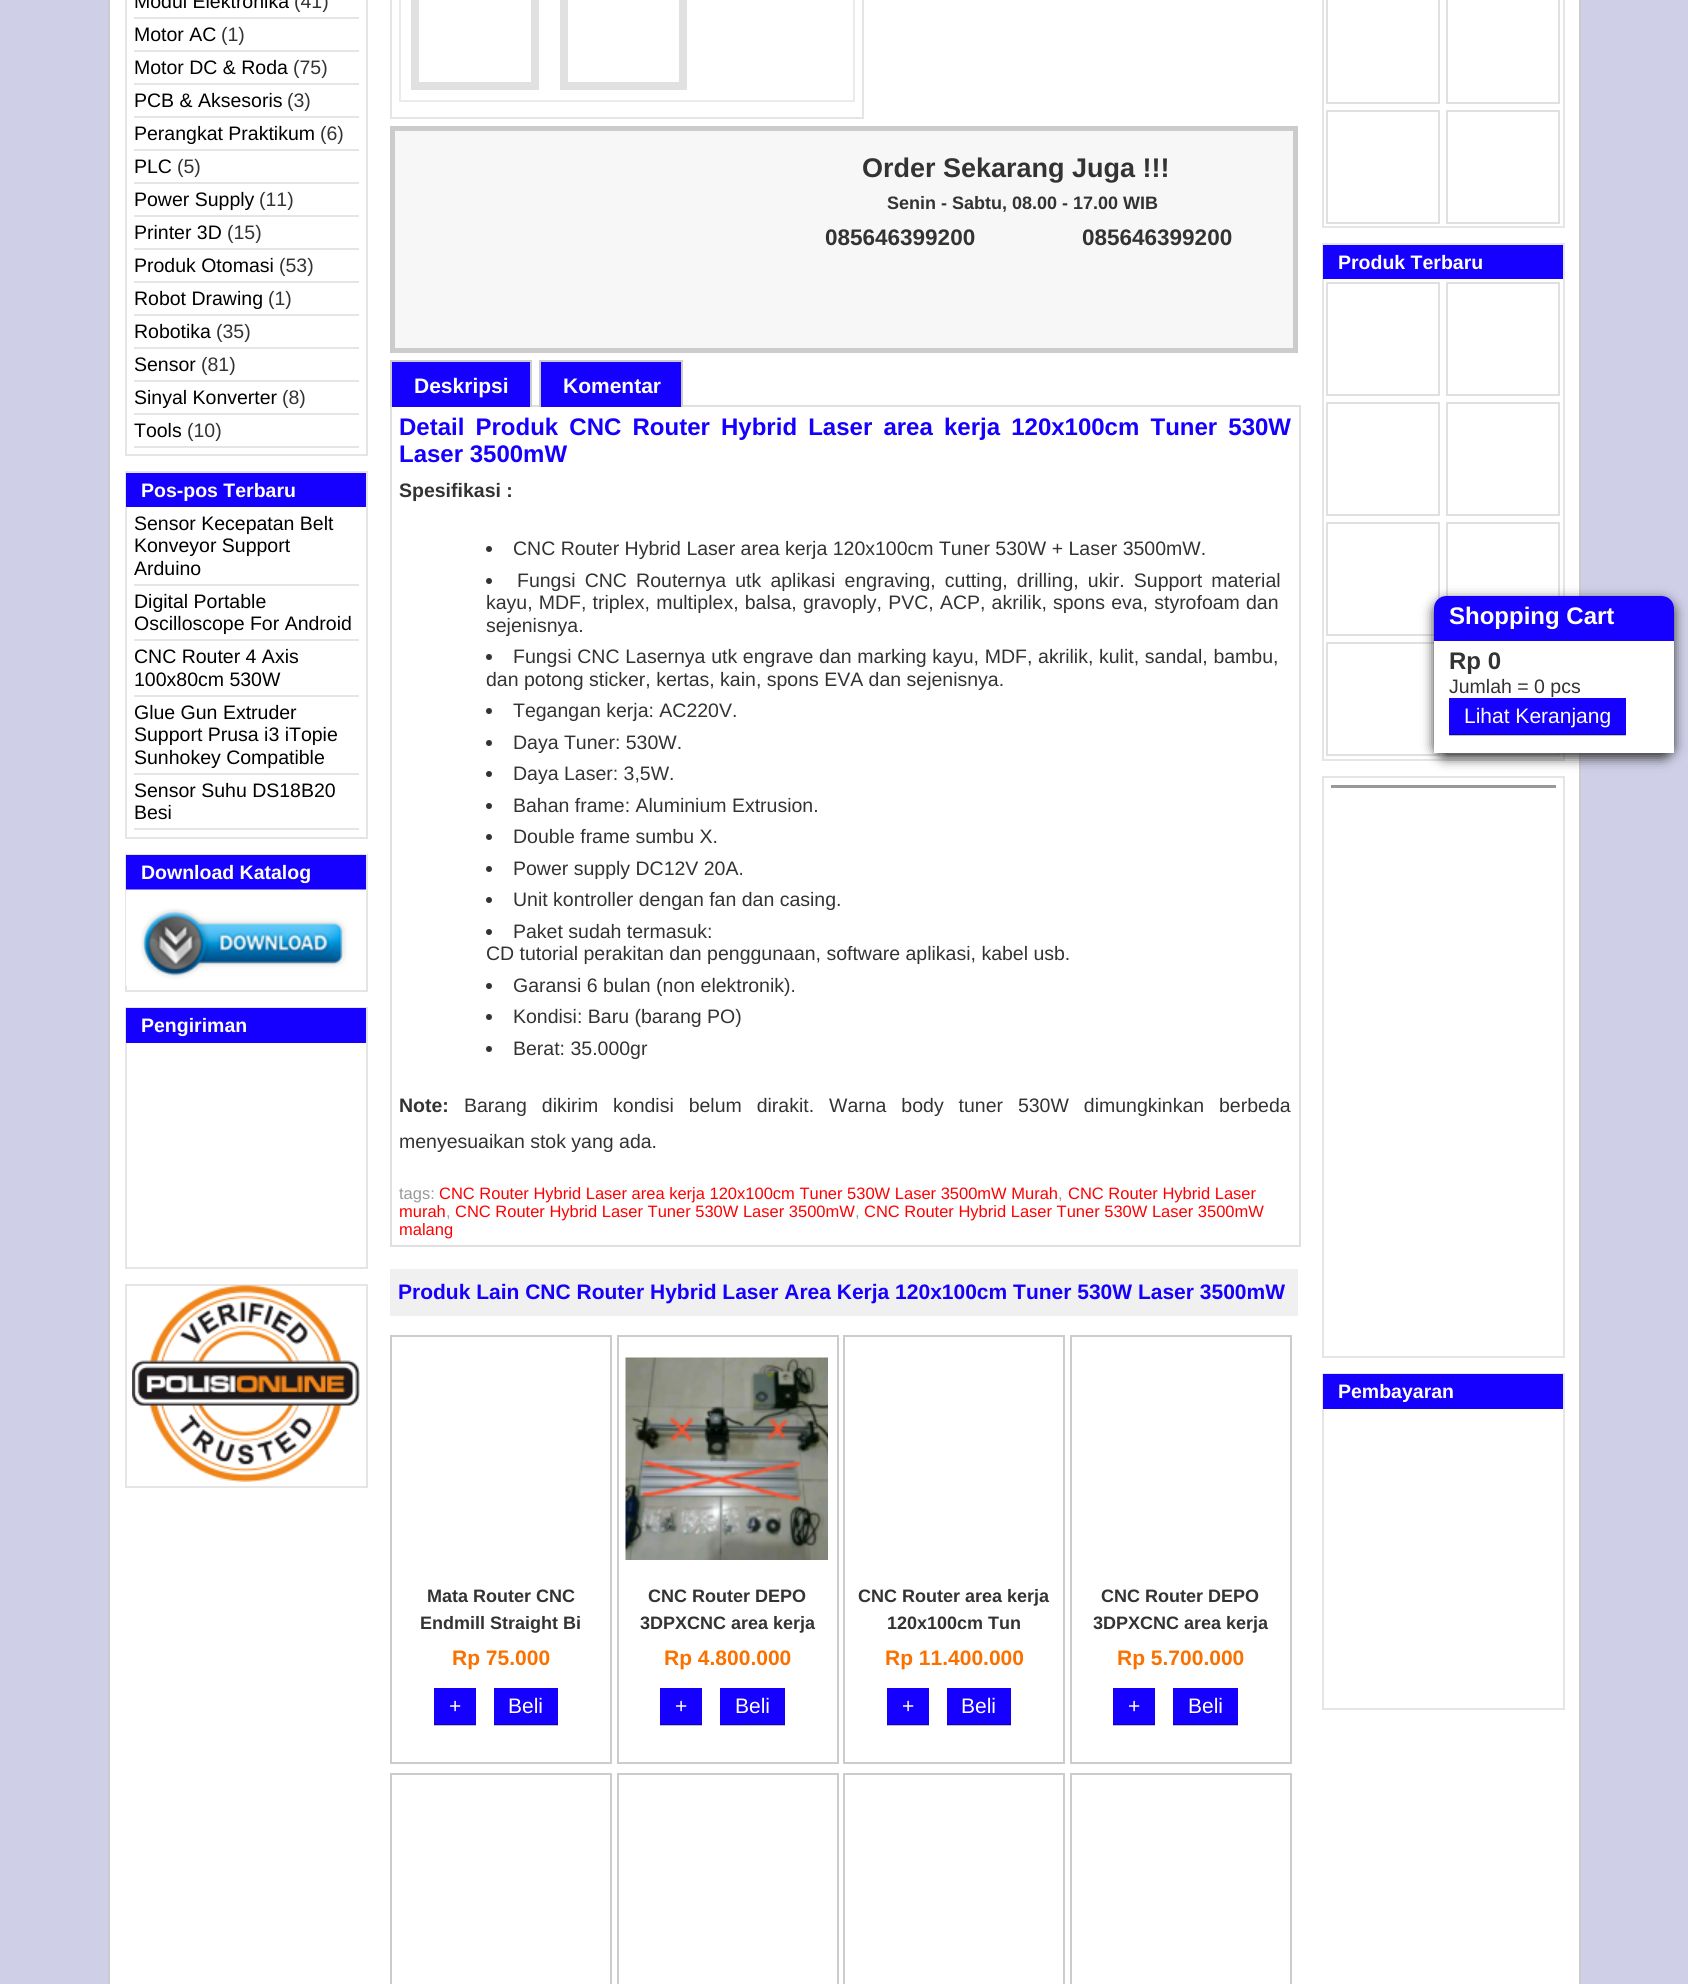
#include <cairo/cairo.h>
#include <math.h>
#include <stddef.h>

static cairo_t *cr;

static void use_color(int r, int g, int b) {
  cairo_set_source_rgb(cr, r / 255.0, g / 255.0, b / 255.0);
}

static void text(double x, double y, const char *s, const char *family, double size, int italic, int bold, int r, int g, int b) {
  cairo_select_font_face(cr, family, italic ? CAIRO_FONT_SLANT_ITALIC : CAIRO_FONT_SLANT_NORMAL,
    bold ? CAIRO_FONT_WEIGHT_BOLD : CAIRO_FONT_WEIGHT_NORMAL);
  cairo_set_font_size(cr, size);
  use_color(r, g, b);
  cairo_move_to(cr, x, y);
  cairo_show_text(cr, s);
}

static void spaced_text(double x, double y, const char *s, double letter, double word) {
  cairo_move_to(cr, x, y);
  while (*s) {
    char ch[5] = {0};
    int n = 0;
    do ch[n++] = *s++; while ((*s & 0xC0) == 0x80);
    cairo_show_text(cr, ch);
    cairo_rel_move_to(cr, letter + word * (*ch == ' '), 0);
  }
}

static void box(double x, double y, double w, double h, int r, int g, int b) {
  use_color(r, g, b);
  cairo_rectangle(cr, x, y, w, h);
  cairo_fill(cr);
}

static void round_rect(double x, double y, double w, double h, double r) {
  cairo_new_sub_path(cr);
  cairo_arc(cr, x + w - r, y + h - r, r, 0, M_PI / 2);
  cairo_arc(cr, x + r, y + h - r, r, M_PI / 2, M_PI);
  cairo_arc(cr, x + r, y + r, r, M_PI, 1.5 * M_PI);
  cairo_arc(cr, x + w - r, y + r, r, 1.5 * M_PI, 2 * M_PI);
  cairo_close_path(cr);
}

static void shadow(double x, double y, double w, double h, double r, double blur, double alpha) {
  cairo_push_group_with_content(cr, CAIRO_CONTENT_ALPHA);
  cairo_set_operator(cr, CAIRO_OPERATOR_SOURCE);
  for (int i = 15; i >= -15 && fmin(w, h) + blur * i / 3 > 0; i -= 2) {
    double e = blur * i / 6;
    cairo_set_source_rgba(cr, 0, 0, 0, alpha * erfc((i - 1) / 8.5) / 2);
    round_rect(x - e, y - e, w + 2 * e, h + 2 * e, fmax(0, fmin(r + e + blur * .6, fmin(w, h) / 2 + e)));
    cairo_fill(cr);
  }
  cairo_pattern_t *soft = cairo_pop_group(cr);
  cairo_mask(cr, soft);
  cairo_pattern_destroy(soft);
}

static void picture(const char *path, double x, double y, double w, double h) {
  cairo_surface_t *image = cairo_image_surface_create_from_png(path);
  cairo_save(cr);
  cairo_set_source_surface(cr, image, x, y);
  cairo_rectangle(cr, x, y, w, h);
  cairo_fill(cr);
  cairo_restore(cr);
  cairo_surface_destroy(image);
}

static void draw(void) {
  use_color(207, 208, 232);
  cairo_paint(cr);
  box(110, 0, 1469, 1984, 255, 255, 255);
  box(1173, 1725, 65, 1, 191, 191, 191);
  box(1113, 1725, 42, 1, 191, 191, 191);
  box(947, 1725, 64, 1, 191, 191, 191);
  box(887, 1725, 42, 1, 191, 191, 191);
  box(720, 1725, 65, 1, 191, 191, 191);
  box(660, 1725, 42, 1, 191, 191, 191);
  box(494, 1725, 64, 1, 191, 191, 191);
  box(434, 1725, 42, 1, 191, 191, 191);
  cairo_rectangle(cr, 109, -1, 1471, 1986);
  use_color(204, 204, 204);
  cairo_stroke(cr);
  cairo_rectangle(cr, 126, -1, 241, 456);
  use_color(229, 229, 229);
  cairo_stroke(cr);
  box(134, 17, 225, 2, 229, 229, 229);
  box(134, 50, 225, 2, 229, 229, 229);
  box(134, 83, 225, 2, 229, 229, 229);
  box(134, 116, 225, 2, 229, 229, 229);
  box(134, 149, 225, 2, 229, 229, 229);
  box(134, 182, 225, 2, 229, 229, 229);
  box(134, 215, 225, 2, 229, 229, 229);
  box(134, 248, 225, 2, 229, 229, 229);
  box(134, 281, 225, 2, 229, 229, 229);
  box(134, 314, 225, 2, 229, 229, 229);
  box(134, 347, 225, 2, 229, 229, 229);
  box(134, 380, 225, 2, 229, 229, 229);
  box(134, 413, 225, 2, 229, 229, 229);
  box(134, 446, 225, 2, 229, 229, 229);
  cairo_rectangle(cr, 126, 472, 241, 366);
  cairo_stroke(cr);
  box(126, 473, 240, 34, 21, 0, 255);
  box(134, 584, 225, 2, 229, 229, 229);
  box(134, 639, 225, 2, 229, 229, 229);
  box(134, 695, 225, 2, 229, 229, 229);
  box(134, 773, 225, 2, 229, 229, 229);
  box(134, 828, 225, 2, 229, 229, 229);
  cairo_rectangle(cr, 126, 855, 241, 136);
  cairo_stroke(cr);
  box(126, 855, 240, 35, 21, 0, 255);
  picture("img_01.png", 126, 889, 240, 97);
  cairo_rectangle(cr, 126, 1008, 241, 260);
  use_color(229, 229, 229);
  cairo_stroke(cr);
  box(126, 1008, 240, 35, 21, 0, 255);
  cairo_rectangle(cr, 126, 1285, 241, 202);
  use_color(229, 229, 229);
  cairo_stroke(cr);
  picture("img_02.png", 132, 1285, 228, 197);
  cairo_rectangle(cr, 391, -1, 472, 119);
  cairo_stroke(cr);
  cairo_rectangle(cr, 400, -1, 454, 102);
  use_color(235, 235, 235);
  cairo_stroke(cr);
  cairo_rectangle(cr, 415, -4, 120, 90);
  use_color(225, 225, 225);
  cairo_set_line_width(cr, 8);
  cairo_stroke(cr);
  cairo_rectangle(cr, 564, -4, 119, 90);
  cairo_stroke(cr);
  use_color(247, 247, 247);
  cairo_rectangle(cr, 392.5, 128.5, 903, 222);
  cairo_fill_preserve(cr);
  use_color(204, 204, 204);
  cairo_set_line_width(cr, 5);
  cairo_stroke(cr);
  cairo_rectangle(cr, 391, 406, 909, 840);
  use_color(224, 224, 224);
  cairo_set_line_width(cr, 2);
  cairo_stroke(cr);
  box(392, 362, 138, 45, 21, 0, 255);
  box(390, 360, 141, 2, 204, 204, 204);
  box(530, 360, 2, 47, 204, 204, 204);
  box(390, 360, 2, 47, 204, 204, 204);
  box(541, 362, 140, 45, 21, 0, 255);
  box(539, 360, 144, 2, 204, 204, 204);
  box(681, 360, 2, 47, 204, 204, 204);
  box(539, 360, 2, 47, 204, 204, 204);
  use_color(51, 51, 51);
  cairo_arc(cr, 489, 549, 3, 0, 2 * M_PI);
  cairo_fill(cr);
  cairo_arc(cr, 489, 581, 3, 0, 2 * M_PI);
  cairo_fill(cr);
  cairo_arc(cr, 489, 657, 3, 0, 2 * M_PI);
  cairo_fill(cr);
  cairo_arc(cr, 489, 711, 3, 0, 2 * M_PI);
  cairo_fill(cr);
  cairo_arc(cr, 489, 743, 3, 0, 2 * M_PI);
  cairo_fill(cr);
  cairo_arc(cr, 489, 774, 3, 0, 2 * M_PI);
  cairo_fill(cr);
  cairo_arc(cr, 489, 806, 3, 0, 2 * M_PI);
  cairo_fill(cr);
  cairo_arc(cr, 489, 837, 3, 0, 2 * M_PI);
  cairo_fill(cr);
  cairo_arc(cr, 489, 869, 3, 0, 2 * M_PI);
  cairo_fill(cr);
  cairo_arc(cr, 489, 900, 3, 0, 2 * M_PI);
  cairo_fill(cr);
  cairo_arc(cr, 489, 932, 3, 0, 2 * M_PI);
  cairo_fill(cr);
  cairo_arc(cr, 489, 986, 3, 0, 2 * M_PI);
  cairo_fill(cr);
  cairo_arc(cr, 489, 1017, 3, 0, 2 * M_PI);
  cairo_fill(cr);
  cairo_arc(cr, 489, 1049, 3, 0, 2 * M_PI);
  cairo_fill(cr);
  cairo_rectangle(cr, 1323, 244, 241, 516);
  use_color(229, 229, 229);
  cairo_stroke(cr);
  cairo_rectangle(cr, 1327, 523, 112, 112);
  use_color(224, 224, 224);
  cairo_stroke(cr);
  cairo_rectangle(cr, 1447, 523, 112, 112);
  cairo_stroke(cr);
  cairo_rectangle(cr, 1327, 643, 112, 112);
  cairo_stroke(cr);
  cairo_rectangle(cr, 1447, 643, 112, 112);
  cairo_stroke(cr);
  cairo_rectangle(cr, 1323, 777, 241, 580);
  use_color(229, 229, 229);
  cairo_stroke(cr);
  use_color(50, 50, 50);
  shadow(1434, 600, 240, 158, 12, 6, 1);
  use_color(255, 255, 255);
  cairo_new_path(cr);
  cairo_move_to(cr, 1446, 596);
  cairo_line_to(cr, 1662, 596);
  cairo_curve_to(cr, 1668.5, 596, 1674, 601.5, 1674, 608);
  cairo_line_to(cr, 1674, 753);
  cairo_line_to(cr, 1434, 753);
  cairo_line_to(cr, 1434, 608);
  cairo_curve_to(cr, 1434, 601.5, 1439.5, 596, 1446, 596);
  cairo_close_path(cr);
  cairo_fill(cr);
  use_color(21, 0, 255);
  cairo_new_path(cr);
  cairo_move_to(cr, 1446, 596);
  cairo_line_to(cr, 1662, 596);
  cairo_curve_to(cr, 1668.5, 596, 1674, 601.5, 1674, 608);
  cairo_line_to(cr, 1674, 641);
  cairo_line_to(cr, 1434, 641);
  cairo_line_to(cr, 1434, 608);
  cairo_curve_to(cr, 1434, 601.5, 1439.5, 596, 1446, 596);
  cairo_close_path(cr);
  cairo_fill(cr);
  box(1449, 698, 177, 37, 21, 0, 255);
  cairo_set_source_rgba(cr, 0, 0, 0, 0.25);
  cairo_rectangle(cr, 1449, 734, 177, 2);
  cairo_fill(cr);
  box(390, 1269, 908, 47, 240, 240, 240);
  cairo_rectangle(cr, 391, 1336, 220, 427);
  use_color(204, 204, 204);
  cairo_stroke(cr);
  box(434, 1688, 42, 36, 21, 0, 255);
  box(434, 1724, 42, 1, 16, 0, 191);
  box(494, 1688, 64, 36, 21, 0, 255);
  box(494, 1724, 64, 1, 16, 0, 191);
  cairo_rectangle(cr, 618, 1336, 220, 427);
  use_color(204, 204, 204);
  cairo_stroke(cr);
  picture("img_03.png", 625, 1357, 203, 203);
  box(660, 1688, 42, 36, 21, 0, 255);
  box(660, 1724, 42, 1, 16, 0, 191);
  box(720, 1688, 65, 36, 21, 0, 255);
  box(720, 1724, 65, 1, 16, 0, 191);
  cairo_rectangle(cr, 844, 1336, 220, 427);
  use_color(204, 204, 204);
  cairo_stroke(cr);
  box(887, 1688, 42, 36, 21, 0, 255);
  box(887, 1724, 42, 1, 16, 0, 191);
  box(947, 1688, 64, 36, 21, 0, 255);
  box(947, 1724, 64, 1, 16, 0, 191);
  cairo_rectangle(cr, 1071, 1336, 220, 427);
  use_color(204, 204, 204);
  cairo_stroke(cr);
  box(1113, 1688, 42, 36, 21, 0, 255);
  box(1113, 1724, 42, 1, 16, 0, 191);
  box(1173, 1688, 65, 36, 21, 0, 255);
  box(1173, 1724, 65, 1, 16, 0, 191);
  cairo_rectangle(cr, 391, 1774, 220, 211);
  use_color(204, 204, 204);
  cairo_stroke(cr);
  cairo_rectangle(cr, 618, 1774, 220, 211);
  cairo_stroke(cr);
  cairo_rectangle(cr, 844, 1774, 220, 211);
  cairo_stroke(cr);
  cairo_rectangle(cr, 1071, 1774, 220, 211);
  cairo_stroke(cr);
  cairo_rectangle(cr, 1323, -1, 241, 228);
  use_color(229, 229, 229);
  cairo_stroke(cr);
  cairo_rectangle(cr, 1327, -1, 112, 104);
  use_color(224, 224, 224);
  cairo_stroke(cr);
  cairo_rectangle(cr, 1447, -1, 112, 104);
  cairo_stroke(cr);
  cairo_rectangle(cr, 1327, 111, 112, 112);
  cairo_stroke(cr);
  cairo_rectangle(cr, 1447, 111, 112, 112);
  cairo_stroke(cr);
  box(1323, 245, 240, 34, 21, 0, 255);
  cairo_rectangle(cr, 1327, 283, 112, 112);
  use_color(224, 224, 224);
  cairo_stroke(cr);
  cairo_rectangle(cr, 1447, 283, 112, 112);
  cairo_stroke(cr);
  cairo_rectangle(cr, 1327, 403, 112, 112);
  cairo_stroke(cr);
  cairo_rectangle(cr, 1447, 403, 112, 112);
  cairo_stroke(cr);
  box(1331, 785, 225, 3, 153, 153, 153);
  cairo_rectangle(cr, 1323, 1374, 241, 335);
  use_color(229, 229, 229);
  cairo_stroke(cr);
  box(1323, 1374, 240, 35, 21, 0, 255);
  text(134, 8, "Modul Elektronika", "Liberation Sans", 19.5, 0, 0, 0, 0, 0);
  text(294, 8, "(41)", "Liberation Sans", 19.5, 0, 0, 51, 51, 51);
  text(134, 41, "Motor AC", "Liberation Sans", 19.5, 0, 0, 0, 0, 0);
  text(221, 41, "(1)", "Liberation Sans", 19.5, 0, 0, 51, 51, 51);
  text(134, 74, "Motor DC & Roda", "Liberation Sans", 19.5, 0, 0, 0, 0, 0);
  text(293, 74, "(75)", "Liberation Sans", 19.5, 0, 0, 51, 51, 51);
  text(134, 107, "PCB & Aksesoris", "Liberation Sans", 19.5, 0, 0, 0, 0, 0);
  text(287, 107, "(3)", "Liberation Sans", 19.5, 0, 0, 51, 51, 51);
  text(134, 140, "Perangkat Praktikum", "Liberation Sans", 19.5, 0, 0, 0, 0, 0);
  text(320, 140, "(6)", "Liberation Sans", 19.5, 0, 0, 51, 51, 51);
  text(134, 173, "PLC", "Liberation Sans", 19.5, 0, 0, 0, 0, 0);
  text(177, 173, "(5)", "Liberation Sans", 19.5, 0, 0, 51, 51, 51);
  text(134, 206, "Power Supply", "Liberation Sans", 19.5, 0, 0, 0, 0, 0);
  text(259, 206, "(11)", "Liberation Sans", 19.5, 0, 0, 51, 51, 51);
  text(134, 239, "Printer 3D", "Liberation Sans", 19.5, 0, 0, 0, 0, 0);
  text(227, 239, "(15)", "Liberation Sans", 19.5, 0, 0, 51, 51, 51);
  text(134, 272, "Produk Otomasi", "Liberation Sans", 19.5, 0, 0, 0, 0, 0);
  text(279, 272, "(53)", "Liberation Sans", 19.5, 0, 0, 51, 51, 51);
  text(134, 305, "Robot Drawing", "Liberation Sans", 19.5, 0, 0, 0, 0, 0);
  text(268, 305, "(1)", "Liberation Sans", 19.5, 0, 0, 51, 51, 51);
  text(134, 338, "Robotika", "Liberation Sans", 19.5, 0, 0, 0, 0, 0);
  text(216, 338, "(35)", "Liberation Sans", 19.5, 0, 0, 51, 51, 51);
  text(134, 371, "Sensor", "Liberation Sans", 19.5, 0, 0, 0, 0, 0);
  text(201, 371, "(81)", "Liberation Sans", 19.5, 0, 0, 51, 51, 51);
  text(134, 404, "Sinyal Konverter", "Liberation Sans", 19.5, 0, 0, 0, 0, 0);
  text(282, 404, "(8)", "Liberation Sans", 19.5, 0, 0, 51, 51, 51);
  text(134, 437, "Tools", "Liberation Sans", 19.5, 0, 0, 0, 0, 0);
  text(187, 437, "(10)", "Liberation Sans", 19.5, 0, 0, 51, 51, 51);
  text(141, 497, "Pos-pos Terbaru", "Liberation Sans", 19.5, 0, 1, 255, 255, 255);
  text(134, 530, "Sensor Kecepatan Belt", "Liberation Sans", 19.5, 0, 0, 0, 0, 0);
  text(134, 552, "Konveyor Support", "Liberation Sans", 19.5, 0, 0, 0, 0, 0);
  text(134, 575, "Arduino", "Liberation Sans", 19.5, 0, 0, 0, 0, 0);
  text(134, 608, "Digital Portable", "Liberation Sans", 19.5, 0, 0, 0, 0, 0);
  text(134, 630, "Oscilloscope For Android", "Liberation Sans", 19.5, 0, 0, 0, 0, 0);
  text(134, 663, "CNC Router 4 Axis", "Liberation Sans", 19.5, 0, 0, 0, 0, 0);
  text(134, 686, "100x80cm 530W", "Liberation Sans", 19.5, 0, 0, 0, 0, 0);
  text(134, 719, "Glue Gun Extruder", "Liberation Sans", 19.5, 0, 0, 0, 0, 0);
  text(134, 741, "Support Prusa i3 iTopie", "Liberation Sans", 19.5, 0, 0, 0, 0, 0);
  text(134, 764, "Sunhokey Compatible", "Liberation Sans", 19.5, 0, 0, 0, 0, 0);
  text(134, 797, "Sensor Suhu DS18B20", "Liberation Sans", 19.5, 0, 0, 0, 0, 0);
  text(134, 819, "Besi", "Liberation Sans", 19.5, 0, 0, 0, 0, 0);
  text(141, 879, "Download Katalog", "Liberation Sans", 19.5, 0, 1, 255, 255, 255);
  text(141, 1032, "Pengiriman", "Liberation Sans", 19.5, 0, 1, 255, 255, 255);
  text(862, 177, "Order Sekarang Juga !!!", "Liberation Sans", 27, 0, 1, 51, 51, 51);
  text(887, 209, "Senin - Sabtu, 08.00 - 17.00 WIB", "Liberation Sans", 18, 0, 1, 51, 51, 51);
  text(825, 245, "085646399200", "Liberation Sans", 22.5, 0, 1, 51, 51, 51);
  text(1082, 245, "085646399200", "Liberation Sans", 22.5, 0, 1, 51, 51, 51);
  text(414, 393, "Deskripsi", "Liberation Sans", 21, 0, 1, 255, 255, 255);
  text(563, 393, "Komentar", "Liberation Sans", 21, 0, 1, 255, 255, 255);
  cairo_set_font_size(cr, 24);
  use_color(21, 0, 255);
  spaced_text(399, 435, "Detail Produk CNC Router Hybrid Laser area kerja 120x100cm Tuner 530W", 0, 4.5);
  text(399, 462, "Laser 3500mW", "Liberation Sans", 24, 0, 1, 21, 0, 255);
  text(399, 497, "Spesifikasi :", "Liberation Sans", 19.5, 0, 1, 51, 51, 51);
  text(513, 555, "CNC Router Hybrid Laser area kerja 120x100cm Tuner 530W + Laser 3500mW.", "Liberation Sans", 19.5, 0, 0, 51, 51, 51);
  spaced_text(517, 587, "Fungsi CNC Routernya utk aplikasi engraving, cutting, drilling, ukir. Support material", 0, 3.75);
  spaced_text(486, 609, "kayu, MDF, triplex, multiplex, balsa, gravoply, PVC, ACP, akrilik, spons eva, styrofoam dan", 0, 0.75);
  text(486, 632, "sejenisnya.", "Liberation Sans", 19.5, 0, 0, 51, 51, 51);
  spaced_text(513, 663, "Fungsi CNC Lasernya utk engrave dan marking kayu, MDF, akrilik, kulit, sandal, bambu,", 0, 0.3);
  text(486, 686, "dan potong sticker, kertas, kain, spons EVA dan sejenisnya.", "Liberation Sans", 19.5, 0, 0, 51, 51, 51);
  text(513, 717, "Tegangan kerja: AC220V.", "Liberation Sans", 19.5, 0, 0, 51, 51, 51);
  text(513, 749, "Daya Tuner: 530W.", "Liberation Sans", 19.5, 0, 0, 51, 51, 51);
  text(513, 780, "Daya Laser: 3,5W.", "Liberation Sans", 19.5, 0, 0, 51, 51, 51);
  text(513, 812, "Bahan frame: Aluminium Extrusion.", "Liberation Sans", 19.5, 0, 0, 51, 51, 51);
  text(513, 843, "Double frame sumbu X.", "Liberation Sans", 19.5, 0, 0, 51, 51, 51);
  text(513, 875, "Power supply DC12V 20A.", "Liberation Sans", 19.5, 0, 0, 51, 51, 51);
  text(513, 906, "Unit kontroller dengan fan dan casing.", "Liberation Sans", 19.5, 0, 0, 51, 51, 51);
  text(513, 938, "Paket sudah termasuk:", "Liberation Sans", 19.5, 0, 0, 51, 51, 51);
  text(486, 960, "CD tutorial perakitan dan penggunaan, software aplikasi, kabel usb.", "Liberation Sans", 19.5, 0, 0, 51, 51, 51);
  text(513, 992, "Garansi 6 bulan (non elektronik).", "Liberation Sans", 19.5, 0, 0, 51, 51, 51);
  text(513, 1023, "Kondisi: Baru (barang PO)", "Liberation Sans", 19.5, 0, 0, 51, 51, 51);
  text(513, 1055, "Berat: 35.000gr", "Liberation Sans", 19.5, 0, 0, 51, 51, 51);
  text(399, 1112, "Note:", "Liberation Sans", 19.5, 0, 1, 51, 51, 51);
  cairo_select_font_face(cr, "Liberation Sans", CAIRO_FONT_SLANT_NORMAL, CAIRO_FONT_WEIGHT_NORMAL);
  spaced_text(464, 1112, "Barang dikirim kondisi belum dirakit. Warna body tuner 530W dimungkinkan berbeda", 0, 9.5);
  text(399, 1148, "menyesuaikan stok yang ada.", "Liberation Sans", 19.5, 0, 0, 51, 51, 51);
  text(399, 1199, "tags:", "Liberation Sans", 16.5, 0, 0, 153, 153, 153);
  text(439, 1199, "CNC Router Hybrid Laser area kerja 120x100cm Tuner 530W Laser 3500mW Murah", "Liberation Sans", 16.5, 0, 0, 255, 0, 0);
  text(1058, 1199, ",", "Liberation Sans", 16.5, 0, 0, 153, 153, 153);
  text(1068, 1199, "CNC Router Hybrid Laser", "Liberation Sans", 16.5, 0, 0, 255, 0, 0);
  text(399, 1217, "murah", "Liberation Sans", 16.5, 0, 0, 255, 0, 0);
  text(446, 1217, ",", "Liberation Sans", 16.5, 0, 0, 153, 153, 153);
  text(455, 1217, "CNC Router Hybrid Laser Tuner 530W Laser 3500mW", "Liberation Sans", 16.5, 0, 0, 255, 0, 0);
  text(855, 1217, ",", "Liberation Sans", 16.5, 0, 0, 153, 153, 153);
  text(864, 1217, "CNC Router Hybrid Laser Tuner 530W Laser 3500mW", "Liberation Sans", 16.5, 0, 0, 255, 0, 0);
  text(399, 1235, "malang", "Liberation Sans", 16.5, 0, 0, 255, 0, 0);
  text(1449, 624, "Shopping Cart", "Liberation Sans", 24, 0, 1, 255, 255, 255);
  text(1449, 669, "Rp 0", "Liberation Sans", 24, 0, 1, 51, 51, 51);
  text(1449, 693, "Jumlah = 0 pcs", "Liberation Sans", 19.5, 0, 0, 51, 51, 51);
  text(1464, 723, "Lihat Keranjang", "Liberation Sans", 21, 0, 0, 255, 255, 255);
  text(398, 1299, "Produk Lain CNC Router Hybrid Laser Area Kerja 120x100cm Tuner 530W Laser 3500mW", "Liberation Sans", 21, 0, 1, 21, 0, 255);
  text(427, 1602, "Mata Router CNC", "Liberation Sans", 18, 0, 1, 51, 51, 51);
  text(420, 1629, "Endmill Straight Bi", "Liberation Sans", 18, 0, 1, 51, 51, 51);
  text(452, 1665, "Rp 75.000", "Liberation Sans", 21, 0, 1, 250, 113, 0);
  text(449, 1713, "+", "Liberation Sans", 21, 0, 0, 255, 255, 255);
  text(508, 1713, "Beli", "Liberation Sans", 21, 0, 0, 255, 255, 255);
  text(648, 1602, "CNC Router DEPO", "Liberation Sans", 18, 0, 1, 51, 51, 51);
  text(640, 1629, "3DPXCNC area kerja", "Liberation Sans", 18, 0, 1, 51, 51, 51);
  text(664, 1665, "Rp 4.800.000", "Liberation Sans", 21, 0, 1, 250, 113, 0);
  text(675, 1713, "+", "Liberation Sans", 21, 0, 0, 255, 255, 255);
  text(735, 1713, "Beli", "Liberation Sans", 21, 0, 0, 255, 255, 255);
  text(858, 1602, "CNC Router area kerja", "Liberation Sans", 18, 0, 1, 51, 51, 51);
  text(887, 1629, "120x100cm Tun", "Liberation Sans", 18, 0, 1, 51, 51, 51);
  text(885, 1665, "Rp 11.400.000", "Liberation Sans", 21, 0, 1, 250, 113, 0);
  text(902, 1713, "+", "Liberation Sans", 21, 0, 0, 255, 255, 255);
  text(961, 1713, "Beli", "Liberation Sans", 21, 0, 0, 255, 255, 255);
  text(1101, 1602, "CNC Router DEPO", "Liberation Sans", 18, 0, 1, 51, 51, 51);
  text(1093, 1629, "3DPXCNC area kerja", "Liberation Sans", 18, 0, 1, 51, 51, 51);
  text(1117, 1665, "Rp 5.700.000", "Liberation Sans", 21, 0, 1, 250, 113, 0);
  text(1128, 1713, "+", "Liberation Sans", 21, 0, 0, 255, 255, 255);
  text(1188, 1713, "Beli", "Liberation Sans", 21, 0, 0, 255, 255, 255);
  text(1338, 269, "Produk Terbaru", "Liberation Sans", 19.5, 0, 1, 255, 255, 255);
  text(1338, 1398, "Pembayaran", "Liberation Sans", 19.5, 0, 1, 255, 255, 255);
}

int main(void) {
  cairo_surface_t *surface = cairo_image_surface_create(CAIRO_FORMAT_RGB24, 1688, 1984);
  cr = cairo_create(surface);
  cairo_font_options_t *options = cairo_font_options_create();
  cairo_font_options_set_hint_metrics(options, CAIRO_HINT_METRICS_OFF);
  cairo_font_options_set_hint_style(options, CAIRO_HINT_STYLE_NONE);
  cairo_set_font_options(cr, options);
  cairo_set_miter_limit(cr, 4);
  draw();
  cairo_surface_write_to_png(surface, "out.png");
  cairo_font_options_destroy(options);
  cairo_destroy(cr);
  cairo_surface_destroy(surface);
  return 0;
}
